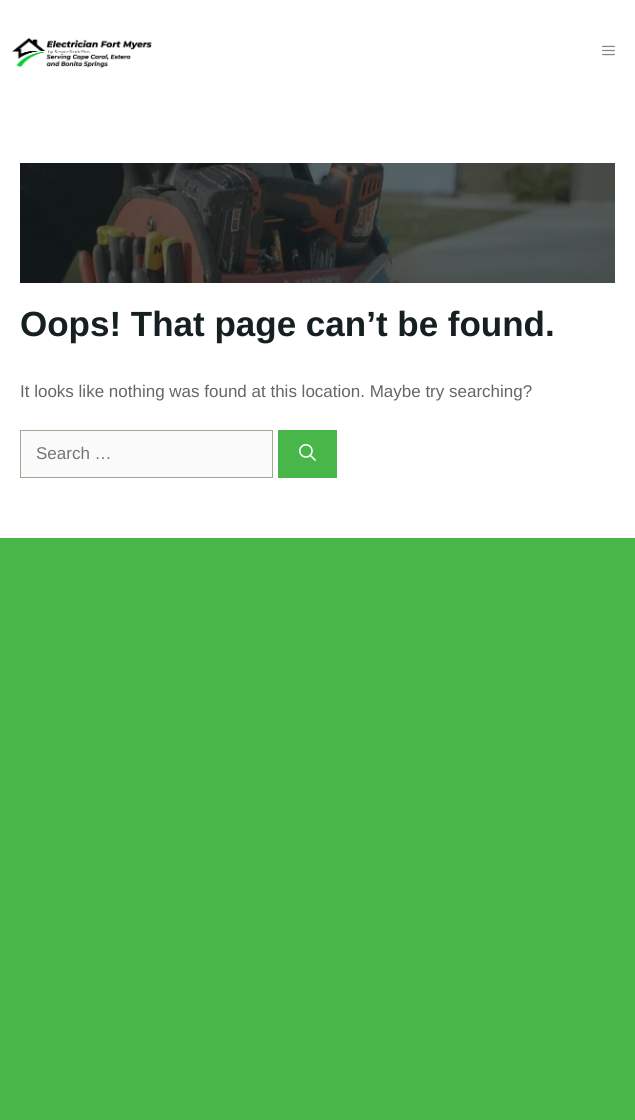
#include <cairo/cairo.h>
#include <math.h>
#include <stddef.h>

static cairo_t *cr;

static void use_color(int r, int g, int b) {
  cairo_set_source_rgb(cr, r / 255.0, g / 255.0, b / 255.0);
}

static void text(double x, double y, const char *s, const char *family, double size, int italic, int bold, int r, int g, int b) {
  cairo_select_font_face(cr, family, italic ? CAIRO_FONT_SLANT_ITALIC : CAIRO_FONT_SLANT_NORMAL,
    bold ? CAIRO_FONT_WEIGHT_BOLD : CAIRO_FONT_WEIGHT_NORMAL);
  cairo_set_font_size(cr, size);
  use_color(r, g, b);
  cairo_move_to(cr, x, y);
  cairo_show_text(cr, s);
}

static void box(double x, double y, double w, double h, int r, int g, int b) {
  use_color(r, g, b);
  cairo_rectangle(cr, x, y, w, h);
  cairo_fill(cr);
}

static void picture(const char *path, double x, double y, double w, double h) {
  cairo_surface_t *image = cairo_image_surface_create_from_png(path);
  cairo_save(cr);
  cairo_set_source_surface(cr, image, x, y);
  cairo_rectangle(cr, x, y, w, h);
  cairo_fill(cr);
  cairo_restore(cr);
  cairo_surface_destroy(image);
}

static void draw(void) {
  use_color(255, 255, 255);
  cairo_paint(cr);
  picture("img_01.png", 12, 37, 140, 31);
  picture("img_02.png", 602, 45, 13, 11);
  box(20, 163, 595, 120, 23, 32, 33);
  picture("img_03.png", 20, 163, 595, 120);
  use_color(250, 250, 250);
  cairo_rectangle(cr, 20.5, 430.5, 252, 47);
  cairo_fill_preserve(cr);
  use_color(163, 167, 145);
  cairo_set_line_width(cr, 1);
  cairo_stroke(cr);
  box(278, 430, 59, 48, 73, 182, 73);
  picture("img_04.png", 299, 444, 17, 17);
  box(0, 538, 635, 582, 73, 182, 73);
  text(20, 336, "Oops! That page can’t be found.", "Liberation Sans", 35, 0, 1, 23, 32, 33);
  text(20, 397, "It looks like nothing was found at this location. Maybe try searching?", "Liberation Sans", 17, 0, 0, 102, 102, 102);
  text(36, 459, "Search …", "Liberation Sans", 17, 0, 0, 117, 117, 117);
}

int main(void) {
  cairo_surface_t *surface = cairo_image_surface_create(CAIRO_FORMAT_RGB24, 635, 1120);
  cr = cairo_create(surface);
  cairo_font_options_t *options = cairo_font_options_create();
  cairo_font_options_set_hint_metrics(options, CAIRO_HINT_METRICS_OFF);
  cairo_font_options_set_hint_style(options, CAIRO_HINT_STYLE_NONE);
  cairo_set_font_options(cr, options);
  cairo_set_miter_limit(cr, 4);
  draw();
  cairo_surface_write_to_png(surface, "out.png");
  cairo_font_options_destroy(options);
  cairo_destroy(cr);
  cairo_surface_destroy(surface);
  return 0;
}
